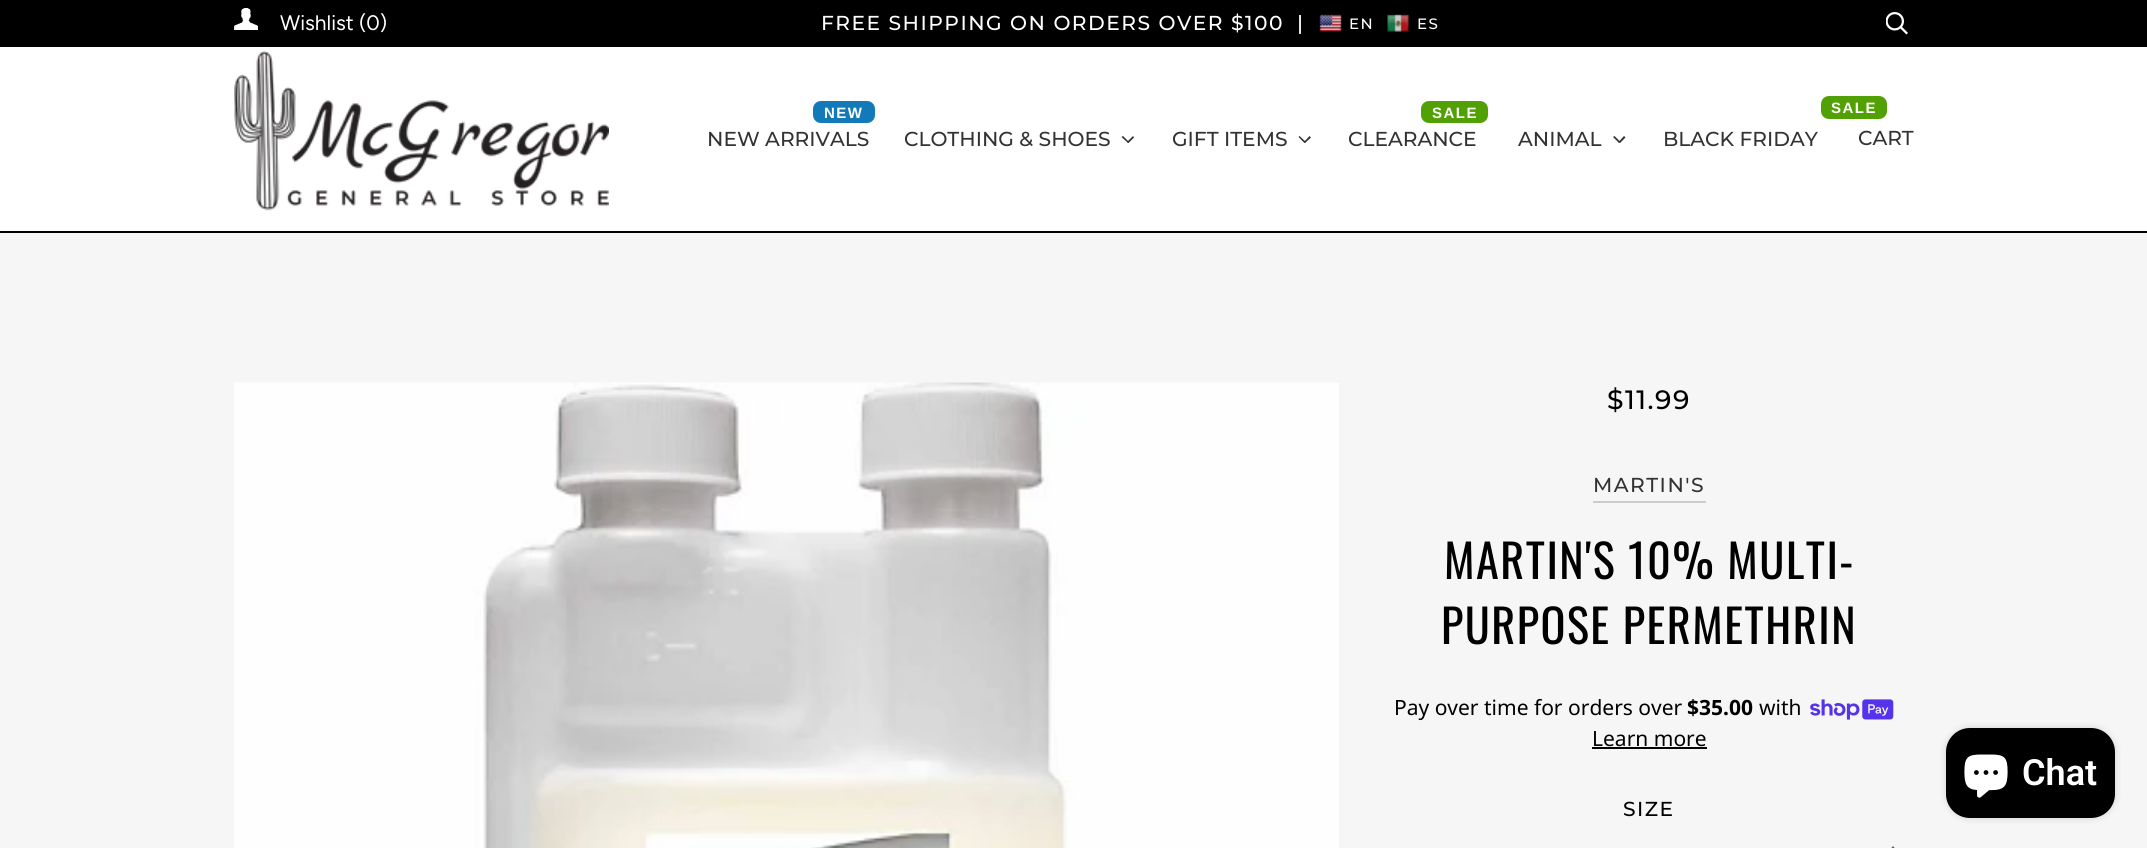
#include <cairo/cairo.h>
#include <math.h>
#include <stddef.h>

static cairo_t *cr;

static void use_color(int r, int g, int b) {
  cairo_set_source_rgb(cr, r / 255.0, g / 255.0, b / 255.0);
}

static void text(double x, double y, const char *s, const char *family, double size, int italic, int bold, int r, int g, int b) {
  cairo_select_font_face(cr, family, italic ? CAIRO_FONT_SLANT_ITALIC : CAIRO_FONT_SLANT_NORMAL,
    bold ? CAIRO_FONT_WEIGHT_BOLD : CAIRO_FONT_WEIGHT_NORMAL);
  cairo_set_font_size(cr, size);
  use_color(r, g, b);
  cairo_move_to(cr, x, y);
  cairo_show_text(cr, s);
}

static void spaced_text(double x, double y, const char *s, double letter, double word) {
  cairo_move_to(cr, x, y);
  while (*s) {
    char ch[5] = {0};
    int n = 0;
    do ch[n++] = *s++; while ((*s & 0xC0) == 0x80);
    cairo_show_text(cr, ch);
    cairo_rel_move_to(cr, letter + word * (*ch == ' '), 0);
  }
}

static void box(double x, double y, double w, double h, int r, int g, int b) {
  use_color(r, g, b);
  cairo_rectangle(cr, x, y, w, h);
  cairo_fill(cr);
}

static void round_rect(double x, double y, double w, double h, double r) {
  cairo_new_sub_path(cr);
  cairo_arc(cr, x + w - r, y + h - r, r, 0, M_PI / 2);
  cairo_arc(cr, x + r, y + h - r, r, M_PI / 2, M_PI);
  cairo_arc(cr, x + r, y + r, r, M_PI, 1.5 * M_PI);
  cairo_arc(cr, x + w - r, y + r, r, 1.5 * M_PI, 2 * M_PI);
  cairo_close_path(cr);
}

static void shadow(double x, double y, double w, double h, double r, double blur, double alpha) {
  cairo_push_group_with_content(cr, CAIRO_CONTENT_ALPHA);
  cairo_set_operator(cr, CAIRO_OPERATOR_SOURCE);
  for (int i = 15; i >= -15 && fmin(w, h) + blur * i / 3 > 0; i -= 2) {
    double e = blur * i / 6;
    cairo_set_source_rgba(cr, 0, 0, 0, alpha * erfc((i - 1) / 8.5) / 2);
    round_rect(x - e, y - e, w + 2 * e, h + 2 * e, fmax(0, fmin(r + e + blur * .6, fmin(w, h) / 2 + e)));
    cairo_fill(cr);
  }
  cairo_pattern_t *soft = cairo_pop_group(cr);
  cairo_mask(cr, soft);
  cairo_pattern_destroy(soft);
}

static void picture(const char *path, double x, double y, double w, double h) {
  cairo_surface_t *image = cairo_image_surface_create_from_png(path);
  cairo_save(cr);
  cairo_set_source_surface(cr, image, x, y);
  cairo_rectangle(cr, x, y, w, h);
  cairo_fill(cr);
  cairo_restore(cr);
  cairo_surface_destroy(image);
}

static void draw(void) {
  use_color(255, 255, 255);
  cairo_paint(cr);
  box(0, 0, 2147, 47, 0, 0, 0);
  picture("img_01.png", 234, 8, 24, 22);
  picture("img_02.png", 1319, 14, 23, 18);
  picture("img_03.png", 1387, 14, 22, 18);
  picture("img_04.png", 1886, 12, 22, 23);
  box(0, 231, 2147, 2, 0, 0, 0);
  picture("img_05.png", 234, 51, 375, 160);
  use_color(18, 122, 184);
  round_rect(813, 101, 62, 22, 8);
  cairo_fill(cr);
  use_color(51, 51, 51);
  cairo_new_path(cr);
  cairo_move_to(cr, 1133, 136);
  cairo_line_to(cr, 1134, 137.5);
  cairo_line_to(cr, 1128.5, 143);
  cairo_line_to(cr, 1127, 142);
  cairo_close_path(cr);
  cairo_fill(cr);
  cairo_new_path(cr);
  cairo_move_to(cr, 1123, 136);
  cairo_line_to(cr, 1129, 142);
  cairo_line_to(cr, 1128, 143);
  cairo_line_to(cr, 1121.5, 137);
  cairo_close_path(cr);
  cairo_fill(cr);
  cairo_new_path(cr);
  cairo_move_to(cr, 1309.5, 136);
  cairo_line_to(cr, 1311, 137.5);
  cairo_line_to(cr, 1305, 143);
  cairo_line_to(cr, 1304, 142);
  cairo_close_path(cr);
  cairo_fill(cr);
  cairo_new_path(cr);
  cairo_move_to(cr, 1299.5, 136);
  cairo_line_to(cr, 1306, 142);
  cairo_line_to(cr, 1304.5, 143);
  cairo_line_to(cr, 1298.5, 137);
  cairo_close_path(cr);
  cairo_fill(cr);
  use_color(82, 161, 4);
  round_rect(1421, 101, 67, 22, 8);
  cairo_fill(cr);
  use_color(51, 51, 51);
  cairo_new_path(cr);
  cairo_move_to(cr, 1624, 136);
  cairo_line_to(cr, 1625.5, 137.5);
  cairo_line_to(cr, 1620, 143);
  cairo_line_to(cr, 1618.5, 142);
  cairo_close_path(cr);
  cairo_fill(cr);
  cairo_new_path(cr);
  cairo_move_to(cr, 1614.5, 136);
  cairo_line_to(cr, 1620.5, 142);
  cairo_line_to(cr, 1619, 143);
  cairo_line_to(cr, 1613, 137);
  cairo_close_path(cr);
  cairo_fill(cr);
  use_color(82, 161, 4);
  round_rect(1821, 96, 66, 23, 8);
  cairo_fill(cr);
  box(0, 233, 2147, 615, 246, 246, 246);
  picture("img_06.png", 234, 382, 1105, 466);
  box(1593, 501, 113, 2, 204, 204, 204);
  picture("img_07.png", 1810, 699, 84, 21);
  box(1592, 747, 115, 2, 0, 0, 0);
  picture("img_08.png", 1891, 846, 4, 2);
  use_color(0, 0, 0);
  shadow(1946, 728, 169, 90, 24, 4, 0.15);
  use_color(0, 0, 0);
  round_rect(1946, 728, 169, 90, 24);
  cairo_fill(cr);
  picture("img_09.png", 1964, 754, 44, 44);
  text(280, 30, "Wishlist (0)", "Figtree", 21, 0, 0, 255, 255, 255);
  cairo_select_font_face(cr, "Montserrat Medium", CAIRO_FONT_SLANT_NORMAL, CAIRO_FONT_WEIGHT_NORMAL);
  cairo_set_font_size(cr, 20.2);
  spaced_text(821, 30, "FREE SHIPPING ON ORDERS OVER $100", 1.5, 0);
  spaced_text(1297, 30, "|", 1.5, 0);
  cairo_set_font_size(cr, 15);
  spaced_text(1349, 29, "EN", 1.5, 0);
  spaced_text(1417, 29, "ES", 1.5, 0);
  cairo_select_font_face(cr, "Liberation Sans", CAIRO_FONT_SLANT_NORMAL, CAIRO_FONT_WEIGHT_BOLD);
  spaced_text(824, 118, "NEW", 1.5, 0);
  text(707, 146, "NEW ARRIVALS", "Montserrat Medium", 20.2, 0, 0, 51, 51, 51);
  text(904, 146, "CLOTHING & SHOES", "Montserrat Medium", 20.2, 0, 0, 51, 51, 51);
  text(1172, 146, "GIFT ITEMS", "Montserrat Medium", 20.2, 0, 0, 51, 51, 51);
  cairo_select_font_face(cr, "Liberation Sans", CAIRO_FONT_SLANT_NORMAL, CAIRO_FONT_WEIGHT_BOLD);
  cairo_set_font_size(cr, 15);
  use_color(255, 255, 255);
  spaced_text(1432, 118, "SALE", 1.5, 0);
  text(1348, 146, "CLEARANCE", "Montserrat Medium", 20.2, 0, 0, 51, 51, 51);
  text(1518, 146, "ANIMAL", "Montserrat Medium", 20.2, 0, 0, 51, 51, 51);
  cairo_select_font_face(cr, "Liberation Sans", CAIRO_FONT_SLANT_NORMAL, CAIRO_FONT_WEIGHT_BOLD);
  cairo_set_font_size(cr, 15);
  use_color(255, 255, 255);
  spaced_text(1831, 113, "SALE", 1.5, 0);
  text(1663, 146, "BLACK FRIDAY", "Montserrat Medium", 20.2, 0, 0, 51, 51, 51);
  text(1858, 145, "CART", "Montserrat Medium", 20.2, 0, 0, 51, 51, 51);
  cairo_set_font_size(cr, 26.5);
  use_color(0, 0, 0);
  spaced_text(1607, 409, "$11.99", 1.5, 0);
  cairo_set_font_size(cr, 20.2);
  use_color(51, 51, 51);
  spaced_text(1593, 492, "MARTIN'S", 1.5, 0);
  cairo_select_font_face(cr, "Oswald", CAIRO_FONT_SLANT_NORMAL, CAIRO_FONT_WEIGHT_NORMAL);
  cairo_set_font_size(cr, 46.25);
  use_color(0, 0, 0);
  spaced_text(1444, 579, "MARTIN'S 10% MULTI-", 1.5, 0);
  spaced_text(1441, 644, "PURPOSE PERMETHRIN", 1.5, 0);
  text(1394, 715, "Pay over time for orders over", "Noto Sans", 21, 0, 0, 0, 0, 0);
  text(1687, 715, "$35.00", "Noto Sans", 21, 0, 1, 0, 0, 0);
  text(1759, 715, "with", "Noto Sans", 21, 0, 0, 0, 0, 0);
  text(1592, 746, "Learn more", "Noto Sans", 21, 0, 0, 0, 0, 0);
  cairo_select_font_face(cr, "Montserrat Medium", CAIRO_FONT_SLANT_NORMAL, CAIRO_FONT_WEIGHT_NORMAL);
  cairo_set_font_size(cr, 20.2);
  spaced_text(1623, 816, "SIZE", 1.5, 0);
  text(2022, 785, "Chat", "Roboto SemiBold", 36, 0, 0, 255, 255, 255);
}

int main(void) {
  cairo_surface_t *surface = cairo_image_surface_create(CAIRO_FORMAT_RGB24, 2147, 848);
  cr = cairo_create(surface);
  cairo_font_options_t *options = cairo_font_options_create();
  cairo_font_options_set_hint_metrics(options, CAIRO_HINT_METRICS_OFF);
  cairo_font_options_set_hint_style(options, CAIRO_HINT_STYLE_NONE);
  cairo_set_font_options(cr, options);
  cairo_set_miter_limit(cr, 4);
  draw();
  cairo_surface_write_to_png(surface, "out.png");
  cairo_font_options_destroy(options);
  cairo_destroy(cr);
  cairo_surface_destroy(surface);
  return 0;
}
